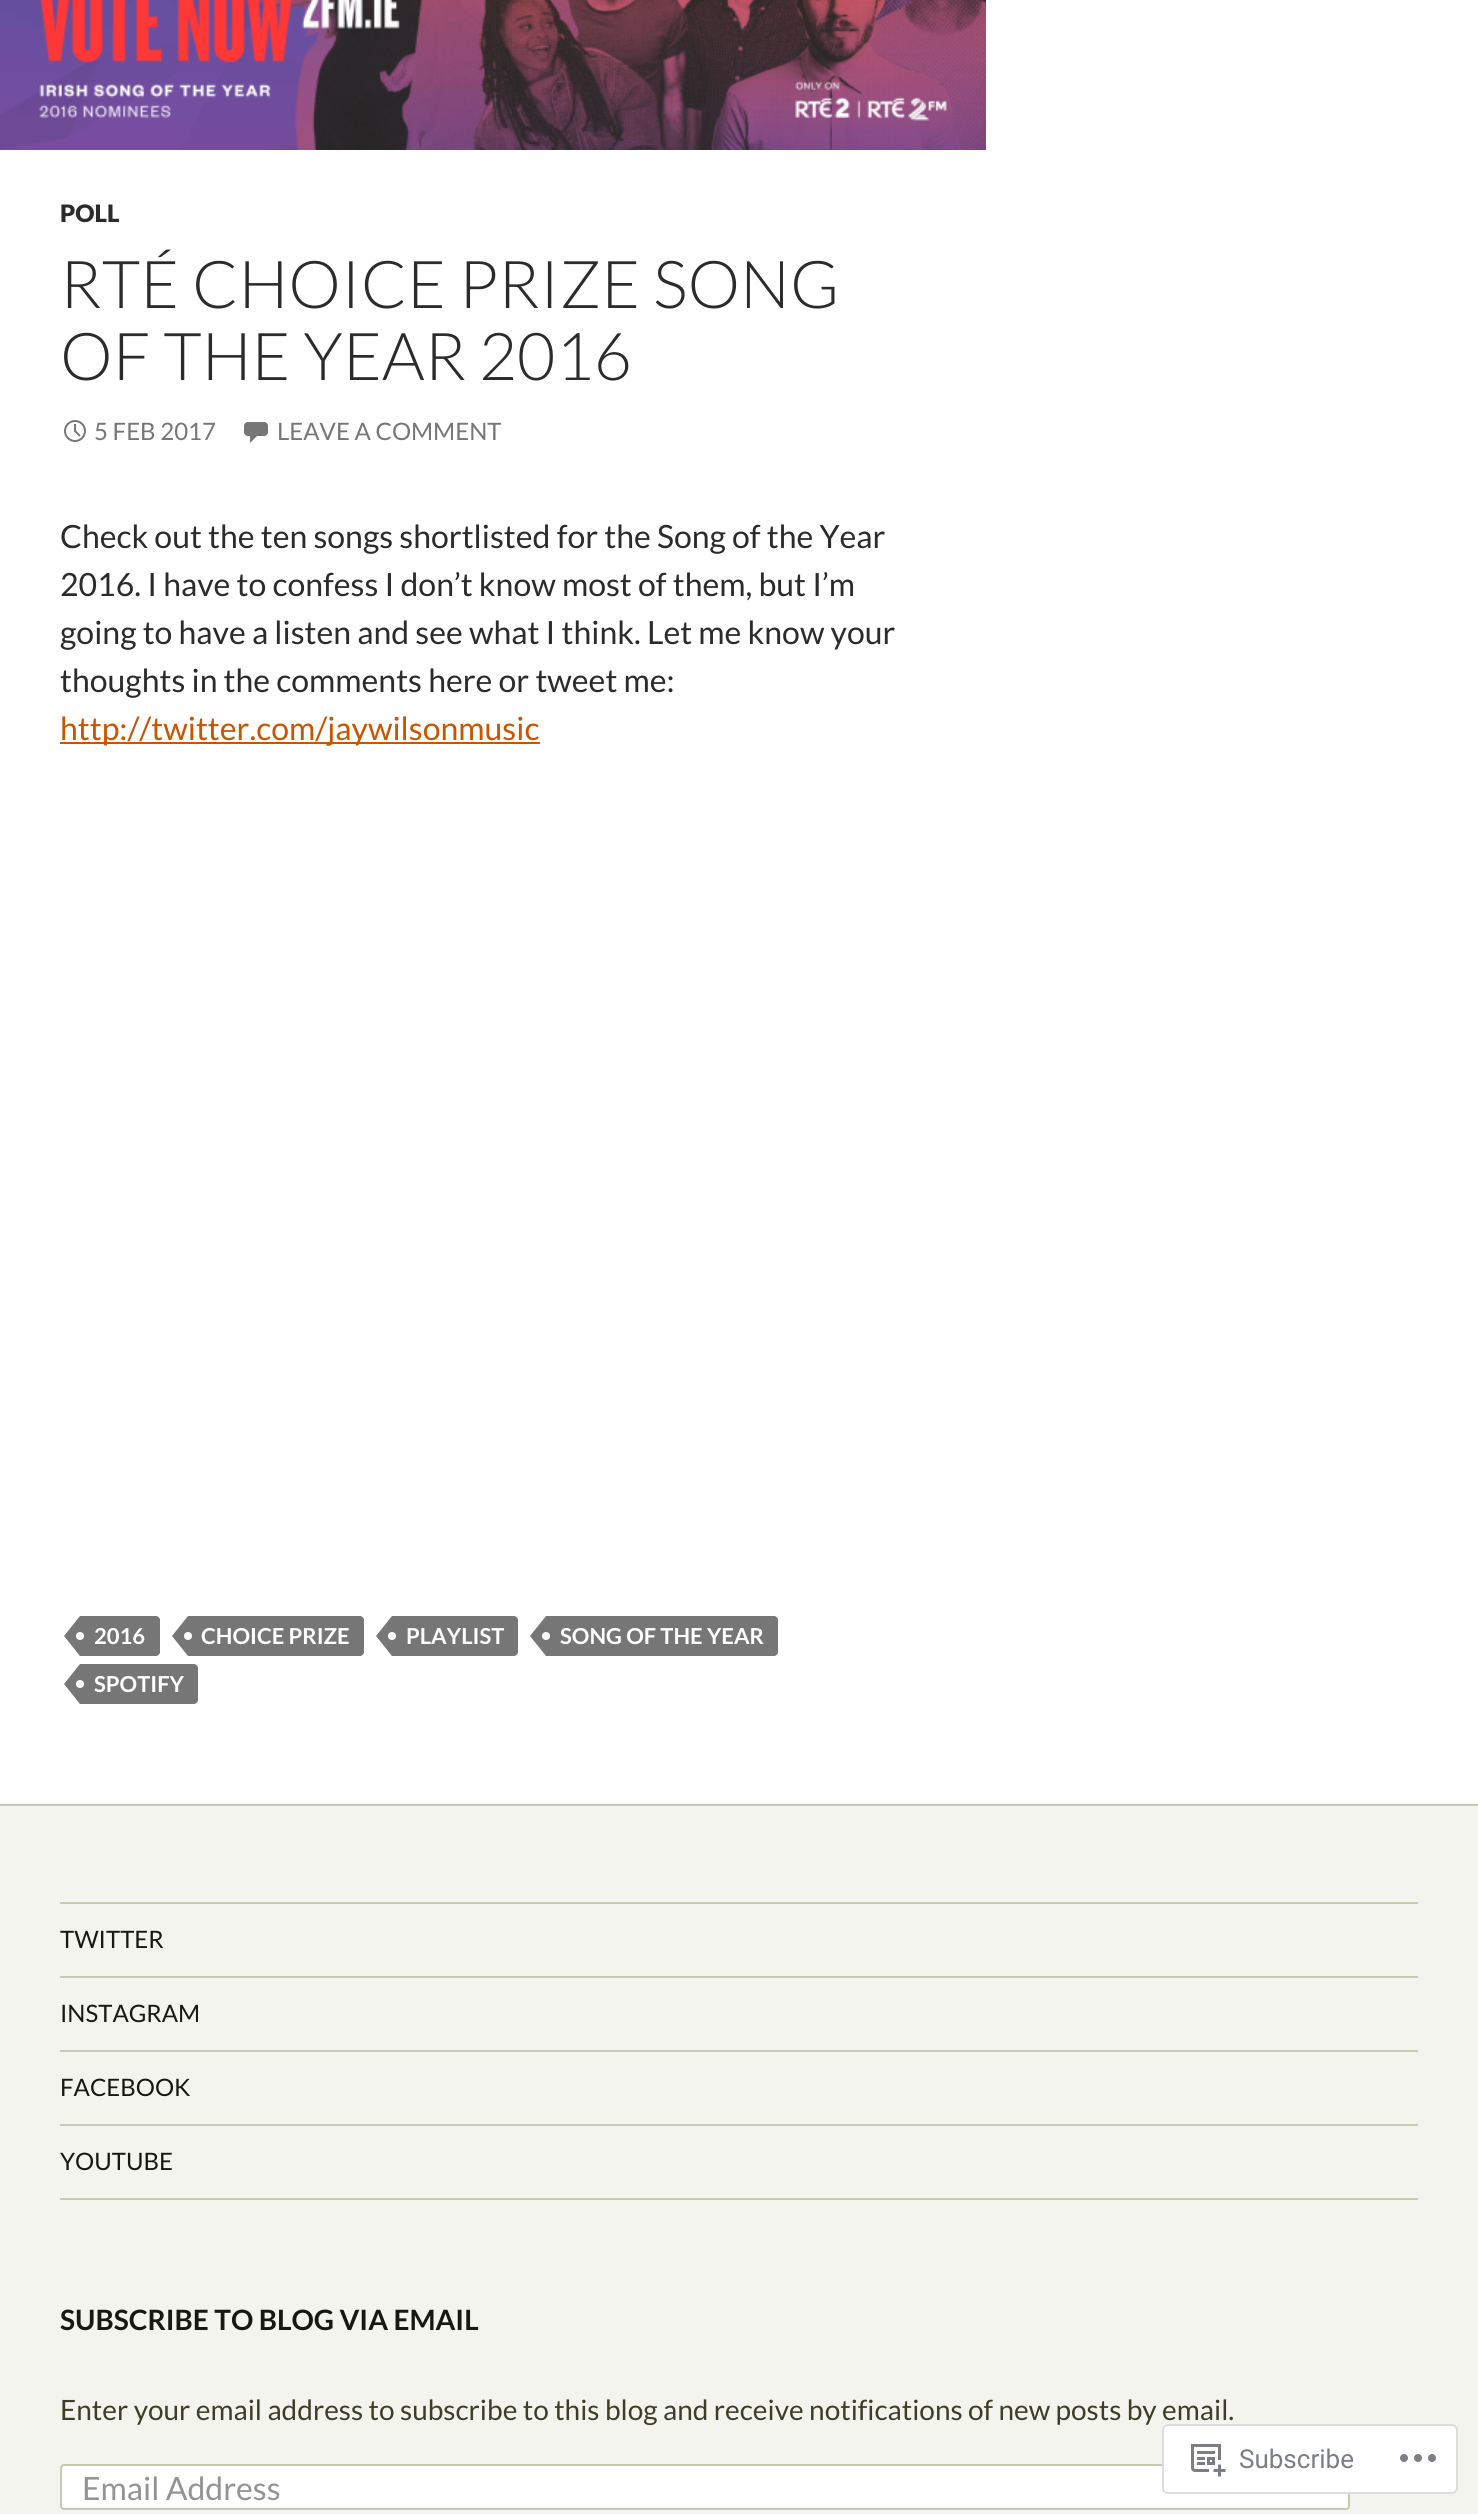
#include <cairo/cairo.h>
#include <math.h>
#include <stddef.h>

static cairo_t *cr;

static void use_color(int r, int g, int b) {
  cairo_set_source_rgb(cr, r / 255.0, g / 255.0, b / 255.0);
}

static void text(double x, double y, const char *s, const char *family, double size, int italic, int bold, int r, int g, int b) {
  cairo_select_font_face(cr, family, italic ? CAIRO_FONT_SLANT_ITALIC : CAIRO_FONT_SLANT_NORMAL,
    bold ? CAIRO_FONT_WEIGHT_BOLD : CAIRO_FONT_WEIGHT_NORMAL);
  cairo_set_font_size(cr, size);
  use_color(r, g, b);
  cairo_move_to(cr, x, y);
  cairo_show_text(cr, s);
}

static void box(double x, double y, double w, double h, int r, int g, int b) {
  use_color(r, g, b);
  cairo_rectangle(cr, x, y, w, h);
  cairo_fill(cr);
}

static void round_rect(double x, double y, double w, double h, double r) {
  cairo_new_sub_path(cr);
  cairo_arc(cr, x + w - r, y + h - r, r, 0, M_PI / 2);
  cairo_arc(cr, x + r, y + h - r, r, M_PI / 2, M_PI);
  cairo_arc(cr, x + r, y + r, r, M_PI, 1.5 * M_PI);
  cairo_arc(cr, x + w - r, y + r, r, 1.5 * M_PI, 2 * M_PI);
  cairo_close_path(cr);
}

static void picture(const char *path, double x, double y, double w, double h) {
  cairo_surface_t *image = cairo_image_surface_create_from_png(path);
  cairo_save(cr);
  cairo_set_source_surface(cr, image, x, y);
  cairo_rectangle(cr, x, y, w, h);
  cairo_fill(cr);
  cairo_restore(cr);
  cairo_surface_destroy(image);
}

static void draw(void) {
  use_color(255, 255, 255);
  cairo_paint(cr);
  picture("img_01.png", 0, 0, 986, 150);
  picture("img_02.png", 0, 0, 986, 150);
  picture("img_03.png", 64, 420, 22, 22);
  picture("img_04.png", 244, 422, 24, 21);
  box(60, 742, 480, 2, 200, 85, 3);
  use_color(118, 118, 118);
  cairo_new_path(cr);
  cairo_move_to(cr, 80, 1616);
  cairo_line_to(cr, 156, 1616);
  cairo_curve_to(cr, 158, 1616, 160, 1618, 160, 1620);
  cairo_line_to(cr, 160, 1652);
  cairo_curve_to(cr, 160, 1654, 158, 1656, 156, 1656);
  cairo_line_to(cr, 80, 1656);
  cairo_close_path(cr);
  cairo_fill(cr);
  cairo_new_path(cr);
  cairo_move_to(cr, 80, 1616);
  cairo_line_to(cr, 80, 1656);
  cairo_line_to(cr, 64, 1636);
  cairo_close_path(cr);
  cairo_fill(cr);
  use_color(255, 255, 255);
  cairo_arc(cr, 80, 1636, 4, 0, 2 * M_PI);
  cairo_fill(cr);
  use_color(118, 118, 118);
  cairo_new_path(cr);
  cairo_move_to(cr, 188, 1616);
  cairo_line_to(cr, 360, 1616);
  cairo_curve_to(cr, 362, 1616, 364, 1618, 364, 1620);
  cairo_line_to(cr, 364, 1652);
  cairo_curve_to(cr, 364, 1654, 362, 1656, 360, 1656);
  cairo_line_to(cr, 188, 1656);
  cairo_close_path(cr);
  cairo_fill(cr);
  cairo_new_path(cr);
  cairo_move_to(cr, 188, 1616);
  cairo_line_to(cr, 188, 1656);
  cairo_line_to(cr, 172, 1636);
  cairo_close_path(cr);
  cairo_fill(cr);
  use_color(255, 255, 255);
  cairo_arc(cr, 188, 1636, 4, 0, 2 * M_PI);
  cairo_fill(cr);
  use_color(118, 118, 118);
  cairo_new_path(cr);
  cairo_move_to(cr, 392, 1616);
  cairo_line_to(cr, 514, 1616);
  cairo_curve_to(cr, 516, 1616, 518, 1618, 518, 1620);
  cairo_line_to(cr, 518, 1652);
  cairo_curve_to(cr, 518, 1654, 516, 1656, 514, 1656);
  cairo_line_to(cr, 392, 1656);
  cairo_close_path(cr);
  cairo_fill(cr);
  cairo_new_path(cr);
  cairo_move_to(cr, 392, 1616);
  cairo_line_to(cr, 392, 1656);
  cairo_line_to(cr, 376, 1636);
  cairo_close_path(cr);
  cairo_fill(cr);
  use_color(255, 255, 255);
  cairo_arc(cr, 392, 1636, 4, 0, 2 * M_PI);
  cairo_fill(cr);
  use_color(118, 118, 118);
  cairo_new_path(cr);
  cairo_move_to(cr, 546, 1616);
  cairo_line_to(cr, 774, 1616);
  cairo_curve_to(cr, 776, 1616, 778, 1618, 778, 1620);
  cairo_line_to(cr, 778, 1652);
  cairo_curve_to(cr, 778, 1654, 776, 1656, 774, 1656);
  cairo_line_to(cr, 546, 1656);
  cairo_close_path(cr);
  cairo_fill(cr);
  cairo_new_path(cr);
  cairo_move_to(cr, 546, 1616);
  cairo_line_to(cr, 546, 1656);
  cairo_line_to(cr, 530, 1636);
  cairo_close_path(cr);
  cairo_fill(cr);
  use_color(255, 255, 255);
  cairo_arc(cr, 546, 1636, 4, 0, 2 * M_PI);
  cairo_fill(cr);
  use_color(118, 118, 118);
  cairo_new_path(cr);
  cairo_move_to(cr, 80, 1664);
  cairo_line_to(cr, 194, 1664);
  cairo_curve_to(cr, 196, 1664, 198, 1666, 198, 1668);
  cairo_line_to(cr, 198, 1700);
  cairo_curve_to(cr, 198, 1702, 196, 1704, 194, 1704);
  cairo_line_to(cr, 80, 1704);
  cairo_close_path(cr);
  cairo_fill(cr);
  cairo_new_path(cr);
  cairo_move_to(cr, 80, 1664);
  cairo_line_to(cr, 80, 1704);
  cairo_line_to(cr, 64, 1684);
  cairo_close_path(cr);
  cairo_fill(cr);
  use_color(255, 255, 255);
  cairo_arc(cr, 80, 1684, 4, 0, 2 * M_PI);
  cairo_fill(cr);
  box(0, 1806, 1478, 708, 244, 244, 239);
  box(0, 1804, 1478, 2, 201, 201, 176);
  box(60, 2198, 1358, 2, 201, 201, 176);
  box(60, 1902, 1358, 2, 201, 201, 176);
  box(60, 1976, 1358, 2, 201, 201, 176);
  box(60, 2050, 1358, 2, 201, 201, 176);
  box(60, 2124, 1358, 2, 201, 201, 176);
  use_color(255, 255, 255);
  round_rect(61, 2465, 1288, 44, 3);
  cairo_fill_preserve(cr);
  use_color(201, 201, 176);
  cairo_stroke(cr);
  text(60, 222, "POLL", "Lato Black", 24, 0, 0, 43, 43, 43);
  text(60, 308, "RTÉ CHOICE PRIZE SONG", "Lato Light", 66, 0, 0, 43, 43, 43);
  text(60, 380, "OF THE YEAR 2016", "Lato Light", 66, 0, 0, 43, 43, 43);
  text(94, 440, "5 FEB 2017", "Lato", 24, 0, 0, 118, 118, 118);
  text(277, 440, "LEAVE A COMMENT", "Lato", 24, 0, 0, 118, 118, 118);
  text(60, 548, "Check out the ten songs shortlisted for the Song of the Year", "Lato", 32, 0, 0, 43, 43, 43);
  text(60, 596, "2016. I have to confess I don’t know most of them, but I’m", "Lato", 32, 0, 0, 43, 43, 43);
  text(60, 644, "going to have a listen and see what I think. Let me know your", "Lato", 32, 0, 0, 43, 43, 43);
  text(60, 692, "thoughts in the comments here or tweet me:", "Lato", 32, 0, 0, 43, 43, 43);
  text(60, 740, "http://twitter.com/jaywilsonmusic", "Lato", 32, 0, 0, 200, 85, 3);
  text(94, 1644, "2016", "Lato", 22, 0, 1, 255, 255, 255);
  text(201, 1644, "CHOICE PRIZE", "Lato", 22, 0, 1, 255, 255, 255);
  text(406, 1644, "PLAYLIST", "Lato", 22, 0, 1, 255, 255, 255);
  text(560, 1644, "SONG OF THE YEAR", "Lato", 22, 0, 1, 255, 255, 255);
  text(94, 1692, "SPOTIFY", "Lato", 22, 0, 1, 255, 255, 255);
  text(60, 1948, "TWITTER", "Lato", 24, 0, 0, 24, 24, 16);
  text(60, 2022, "INSTAGRAM", "Lato", 24, 0, 0, 24, 24, 16);
  text(60, 2096, "FACEBOOK", "Lato", 24, 0, 0, 24, 24, 16);
  text(60, 2170, "YOUTUBE", "Lato", 24, 0, 0, 24, 24, 16);
  text(60, 2330, "SUBSCRIBE TO BLOG VIA EMAIL", "Lato", 28, 0, 1, 24, 24, 16);
  text(60, 2420, "Enter your email address to subscribe to this blog and receive notifications of new posts by email.", "Lato", 28, 0, 0, 61, 61, 40);
  text(82, 2500, "Email Address", "Lato", 32, 0, 0, 147, 147, 147);
  cairo_set_source_rgba(cr, 1, 1, 1, 0.98);
  round_rect(1162, 2424, 296, 70, 6);
  cairo_fill(cr);
  round_rect(1163, 2425, 294, 68, 5);
  cairo_set_source_rgba(cr, 0.863, 0.863, 0.871, 0.98);
  cairo_stroke(cr);
  picture("img_05.png", 1191, 2444, 35, 33);
  text(1239, 2468, "Subscribe", "Roboto", 26, 0, 0, 123, 127, 132);
  picture("img_06.png", 1400, 2454, 36, 8);
}

int main(void) {
  cairo_surface_t *surface = cairo_image_surface_create(CAIRO_FORMAT_RGB24, 1478, 2514);
  cr = cairo_create(surface);
  cairo_font_options_t *options = cairo_font_options_create();
  cairo_font_options_set_hint_metrics(options, CAIRO_HINT_METRICS_OFF);
  cairo_font_options_set_hint_style(options, CAIRO_HINT_STYLE_NONE);
  cairo_set_font_options(cr, options);
  cairo_set_miter_limit(cr, 4);
  draw();
  cairo_surface_write_to_png(surface, "out.png");
  cairo_font_options_destroy(options);
  cairo_destroy(cr);
  cairo_surface_destroy(surface);
  return 0;
}
